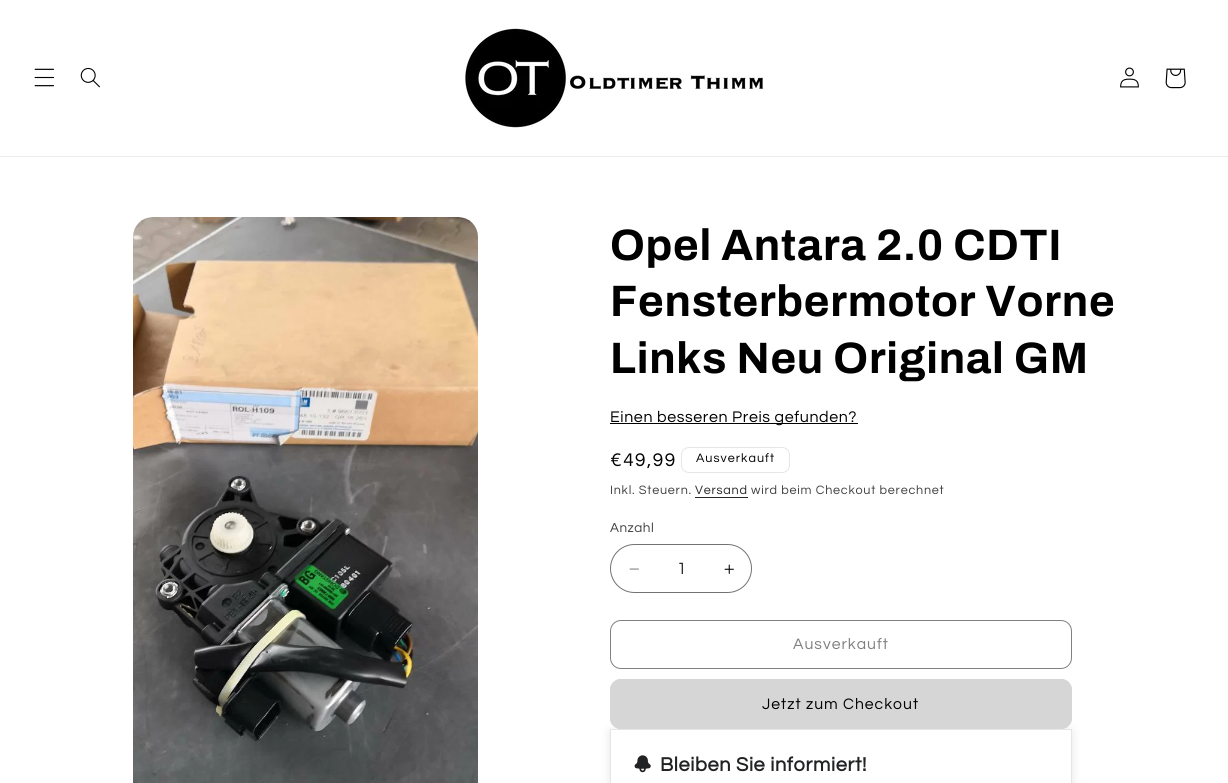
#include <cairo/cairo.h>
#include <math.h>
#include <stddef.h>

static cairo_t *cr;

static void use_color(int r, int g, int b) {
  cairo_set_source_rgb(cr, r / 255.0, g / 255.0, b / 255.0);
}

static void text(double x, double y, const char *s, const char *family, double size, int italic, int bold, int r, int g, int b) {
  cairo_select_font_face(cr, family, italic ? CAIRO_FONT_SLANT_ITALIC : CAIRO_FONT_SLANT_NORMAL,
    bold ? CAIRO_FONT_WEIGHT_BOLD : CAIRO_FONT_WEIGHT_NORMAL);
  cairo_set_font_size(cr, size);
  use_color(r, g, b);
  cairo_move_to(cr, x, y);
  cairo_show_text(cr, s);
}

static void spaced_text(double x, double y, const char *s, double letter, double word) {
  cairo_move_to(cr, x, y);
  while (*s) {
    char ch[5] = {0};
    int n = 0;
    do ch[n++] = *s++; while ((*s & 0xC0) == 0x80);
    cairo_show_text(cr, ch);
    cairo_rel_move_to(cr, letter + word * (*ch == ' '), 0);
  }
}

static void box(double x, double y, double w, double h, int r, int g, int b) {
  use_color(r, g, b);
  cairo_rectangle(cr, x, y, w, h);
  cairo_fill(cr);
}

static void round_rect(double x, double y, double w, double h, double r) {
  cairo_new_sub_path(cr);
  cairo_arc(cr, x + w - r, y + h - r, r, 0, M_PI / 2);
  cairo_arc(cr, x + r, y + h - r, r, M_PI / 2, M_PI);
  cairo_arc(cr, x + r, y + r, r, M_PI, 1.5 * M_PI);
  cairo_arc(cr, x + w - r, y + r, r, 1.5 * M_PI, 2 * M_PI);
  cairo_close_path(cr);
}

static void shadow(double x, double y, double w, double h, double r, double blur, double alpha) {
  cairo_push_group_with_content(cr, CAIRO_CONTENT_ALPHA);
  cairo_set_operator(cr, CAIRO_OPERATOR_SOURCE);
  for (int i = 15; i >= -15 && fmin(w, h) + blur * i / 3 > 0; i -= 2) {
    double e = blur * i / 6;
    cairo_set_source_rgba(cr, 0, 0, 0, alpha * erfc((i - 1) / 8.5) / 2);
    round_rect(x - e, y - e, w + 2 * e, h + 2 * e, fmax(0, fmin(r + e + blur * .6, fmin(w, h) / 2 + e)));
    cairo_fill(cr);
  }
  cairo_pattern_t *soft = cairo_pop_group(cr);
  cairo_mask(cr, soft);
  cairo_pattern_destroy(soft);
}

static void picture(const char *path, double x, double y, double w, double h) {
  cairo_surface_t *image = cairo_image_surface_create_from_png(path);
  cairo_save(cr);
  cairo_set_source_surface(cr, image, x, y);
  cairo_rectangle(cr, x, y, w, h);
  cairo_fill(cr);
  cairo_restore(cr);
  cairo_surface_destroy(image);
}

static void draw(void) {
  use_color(255, 255, 255);
  cairo_paint(cr);
  box(0, 156, 1228, 1, 235, 235, 235);
  picture("img_01.png", 34, 68, 20, 19);
  picture("img_02.png", 80, 67, 20, 21);
  picture("img_03.png", 465, 28, 299, 100);
  picture("img_04.png", 1120, 67, 19, 21);
  picture("img_05.png", 1165, 68, 21, 21);
  picture("img_06.png", 133, 217, 345, 566);
  box(610, 423, 248, 1, 0, 0, 0);
  round_rect(681.5, 447.5, 108, 25, 7.5);
  use_color(230, 230, 230);
  cairo_set_line_width(cr, 1);
  cairo_stroke(cr);
  box(695, 497, 53, 1, 40, 38, 38);
  picture("img_07.png", 629, 568, 10, 2);
  picture("img_08.png", 724, 564, 10, 10);
  round_rect(610.5, 544.5, 141, 48, 24);
  use_color(115, 115, 115);
  cairo_stroke(cr);
  round_rect(610.5, 620.5, 461, 48, 10.5);
  use_color(129, 128, 128);
  cairo_stroke(cr);
  cairo_save(cr);
  cairo_set_fill_rule(cr, CAIRO_FILL_RULE_EVEN_ODD);
  cairo_new_path(cr);
  cairo_move_to(cr, 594, 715);
  cairo_line_to(cr, 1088, 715);
  cairo_line_to(cr, 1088, 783);
  cairo_line_to(cr, 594, 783);
  cairo_close_path(cr);
  cairo_move_to(cr, 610, 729);
  cairo_line_to(cr, 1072, 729);
  cairo_line_to(cr, 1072, 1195);
  cairo_line_to(cr, 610, 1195);
  cairo_close_path(cr);
  cairo_clip(cr);
  use_color(0, 0, 0);
  shadow(610, 731, 462, 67, 0, 5, 0.1);
  cairo_restore(cr);
  use_color(214, 214, 214);
  round_rect(610, 679, 462, 50, 11);
  cairo_fill(cr);
  round_rect(610.5, 679.5, 461, 49, 10.5);
  cairo_stroke(cr);
  cairo_rectangle(cr, 610.5, 729.5, 461, 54);
  use_color(230, 230, 230);
  cairo_stroke(cr);
  picture("img_09.png", 634, 755, 17, 18);
  cairo_select_font_face(cr, "Archivo", CAIRO_FONT_SLANT_NORMAL, CAIRO_FONT_WEIGHT_BOLD);
  cairo_set_font_size(cr, 44);
  use_color(0, 0, 0);
  spaced_text(610, 260, "Opel Antara 2.0 CDTI", 0.7, 0);
  spaced_text(610, 316, "Fensterbermotor Vorne", 0.7, 0);
  spaced_text(610, 373, "Links Neu Original GM", 0.7, 0);
  cairo_select_font_face(cr, "Questrial", CAIRO_FONT_SLANT_NORMAL, CAIRO_FONT_WEIGHT_NORMAL);
  cairo_set_font_size(cr, 16);
  spaced_text(610, 422, "Einen besseren Preis gefunden?", 0.6, 0);
  cairo_set_font_size(cr, 19);
  spaced_text(610, 466, "€49,99", 1.5, 0);
  cairo_set_font_size(cr, 12.6);
  spaced_text(696, 462, "Ausverkauft", 1, 0);
  use_color(64, 64, 64);
  spaced_text(610, 494, "Inkl. Steuern.", 0.75, 0);
  use_color(40, 38, 38);
  spaced_text(695, 494, "Versand", 0.75, 0);
  use_color(64, 64, 64);
  spaced_text(751, 494, "wird beim Checkout berechnet", 0.75, 0);
  cairo_set_font_size(cr, 13.5);
  spaced_text(610, 532, "Anzahl", 0.5, 0);
  text(677, 574, "1", "Questrial", 17, 0, 0, 40, 38, 38);
  cairo_set_font_size(cr, 15.75);
  use_color(129, 128, 128);
  spaced_text(793, 649, "Ausverkauft", 1, 0);
  use_color(0, 0, 0);
  spaced_text(762, 709, "Jetzt zum Checkout", 1, 0);
  cairo_select_font_face(cr, "Questrial", CAIRO_FONT_SLANT_NORMAL, CAIRO_FONT_WEIGHT_BOLD);
  cairo_set_font_size(cr, 20);
  use_color(32, 34, 35);
  spaced_text(660, 771, "Bleiben Sie informiert!", 0.6, 0);
}

int main(void) {
  cairo_surface_t *surface = cairo_image_surface_create(CAIRO_FORMAT_RGB24, 1228, 783);
  cr = cairo_create(surface);
  cairo_font_options_t *options = cairo_font_options_create();
  cairo_font_options_set_hint_metrics(options, CAIRO_HINT_METRICS_OFF);
  cairo_font_options_set_hint_style(options, CAIRO_HINT_STYLE_NONE);
  cairo_set_font_options(cr, options);
  cairo_set_miter_limit(cr, 4);
  draw();
  cairo_surface_write_to_png(surface, "out.png");
  cairo_font_options_destroy(options);
  cairo_destroy(cr);
  cairo_surface_destroy(surface);
  return 0;
}
